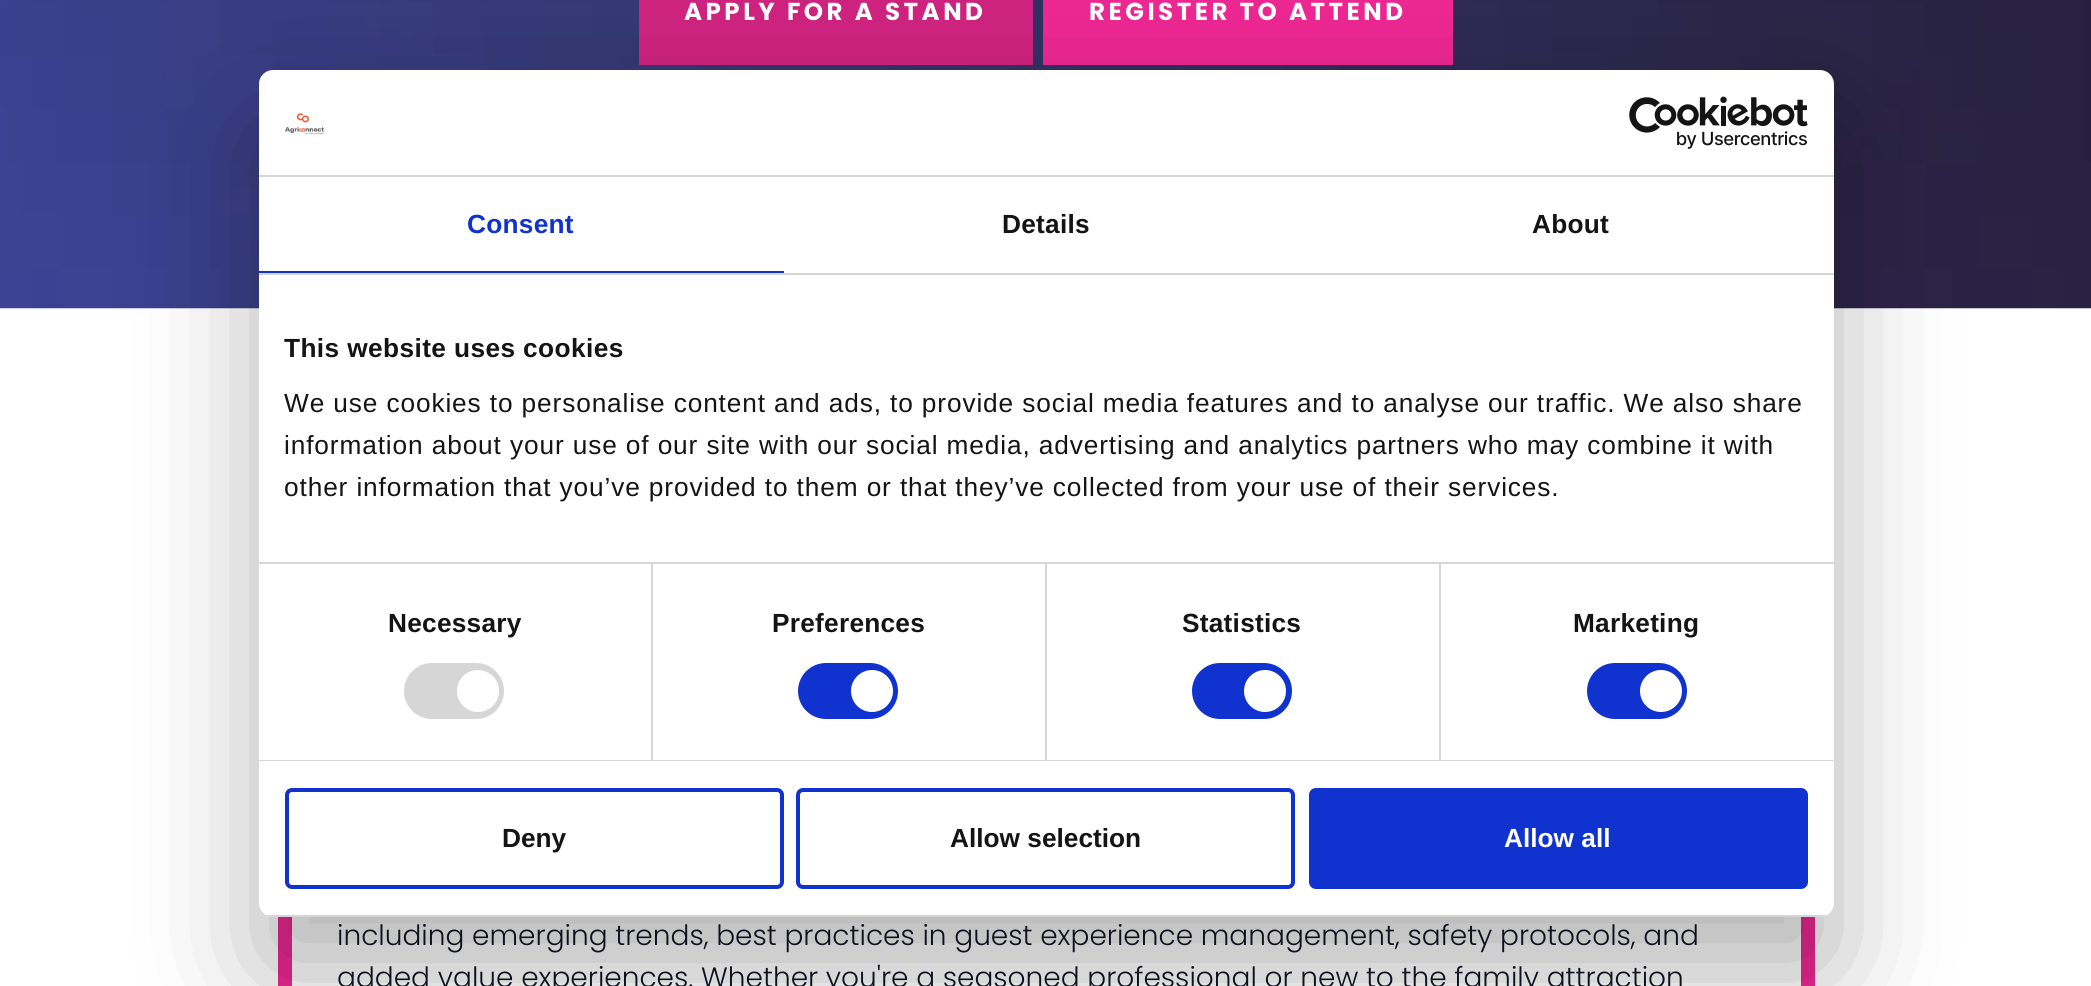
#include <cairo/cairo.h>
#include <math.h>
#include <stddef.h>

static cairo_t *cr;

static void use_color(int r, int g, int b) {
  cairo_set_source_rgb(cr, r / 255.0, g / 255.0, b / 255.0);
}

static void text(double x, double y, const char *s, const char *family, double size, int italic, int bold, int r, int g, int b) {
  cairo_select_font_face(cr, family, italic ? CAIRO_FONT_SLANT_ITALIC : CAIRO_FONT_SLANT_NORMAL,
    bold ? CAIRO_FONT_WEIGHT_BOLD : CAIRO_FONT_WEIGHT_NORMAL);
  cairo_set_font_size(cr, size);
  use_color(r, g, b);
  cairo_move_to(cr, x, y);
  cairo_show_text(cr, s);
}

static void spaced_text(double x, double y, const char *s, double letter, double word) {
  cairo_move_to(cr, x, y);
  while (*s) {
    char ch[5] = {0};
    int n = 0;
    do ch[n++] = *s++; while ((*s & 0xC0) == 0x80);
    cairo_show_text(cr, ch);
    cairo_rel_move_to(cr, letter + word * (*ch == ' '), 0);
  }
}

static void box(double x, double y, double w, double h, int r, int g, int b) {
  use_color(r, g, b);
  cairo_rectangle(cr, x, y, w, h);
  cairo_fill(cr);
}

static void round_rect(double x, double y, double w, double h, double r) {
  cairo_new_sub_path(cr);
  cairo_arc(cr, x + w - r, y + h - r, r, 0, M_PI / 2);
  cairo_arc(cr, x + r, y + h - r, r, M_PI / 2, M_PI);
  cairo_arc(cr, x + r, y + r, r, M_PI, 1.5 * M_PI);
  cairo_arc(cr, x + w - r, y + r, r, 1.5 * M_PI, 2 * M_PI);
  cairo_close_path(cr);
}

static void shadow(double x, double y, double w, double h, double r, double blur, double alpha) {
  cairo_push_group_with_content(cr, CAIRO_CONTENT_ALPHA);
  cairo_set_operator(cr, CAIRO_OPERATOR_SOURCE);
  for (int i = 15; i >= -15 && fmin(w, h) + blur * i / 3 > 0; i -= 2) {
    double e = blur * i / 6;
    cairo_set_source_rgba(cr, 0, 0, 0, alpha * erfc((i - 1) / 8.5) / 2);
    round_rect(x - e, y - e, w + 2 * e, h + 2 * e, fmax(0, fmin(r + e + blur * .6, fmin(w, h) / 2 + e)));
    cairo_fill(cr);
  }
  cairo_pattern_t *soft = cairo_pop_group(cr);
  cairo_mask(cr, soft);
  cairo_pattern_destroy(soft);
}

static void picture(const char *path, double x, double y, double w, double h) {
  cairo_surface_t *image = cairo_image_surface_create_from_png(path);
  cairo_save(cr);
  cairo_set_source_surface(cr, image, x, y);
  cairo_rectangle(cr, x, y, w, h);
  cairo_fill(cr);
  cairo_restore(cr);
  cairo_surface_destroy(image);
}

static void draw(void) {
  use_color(255, 255, 255);
  cairo_paint(cr);
  picture("img_01.png", 0, 0, 2091, 309);
  box(639, 0, 394, 65, 206, 35, 128);
  box(1043, 0, 410, 65, 237, 39, 147);
  cairo_rectangle(cr, 285, 429, 1523, 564);
  cairo_set_line_width(cr, 14);
  cairo_stroke(cr);
  use_color(0, 0, 0);
  shadow(259, 126, 1575, 847, 14, 59.5, 0.3);
  use_color(255, 255, 255);
  round_rect(259, 70, 1575, 847, 14);
  cairo_fill(cr);
  box(259, 175, 1575, 2, 214, 214, 214);
  picture("img_02.png", 285, 113, 39, 22);
  picture("img_03.png", 1629, 96, 179, 53);
  box(259, 273, 1575, 2, 214, 214, 214);
  box(259, 271, 525, 2, 16, 50, 207);
  box(259, 562, 1575, 2, 214, 214, 214);
  box(259, 760, 1575, 1, 214, 214, 214);
  box(651, 564, 2, 196, 214, 214, 214);
  round_rect(404, 663, 100, 56, 28);
  cairo_fill(cr);
  use_color(255, 255, 255);
  cairo_arc(cr, 478, 691, 21, 0, 2 * M_PI);
  cairo_fill(cr);
  box(1045, 564, 2, 196, 214, 214, 214);
  use_color(16, 50, 207);
  round_rect(798, 663, 100, 56, 28);
  cairo_fill(cr);
  use_color(255, 255, 255);
  cairo_arc(cr, 872, 691, 21, 0, 2 * M_PI);
  cairo_fill(cr);
  box(1439, 564, 2, 196, 214, 214, 214);
  use_color(16, 50, 207);
  round_rect(1192, 663, 100, 56, 28);
  cairo_fill(cr);
  use_color(255, 255, 255);
  cairo_arc(cr, 1265, 691, 21, 0, 2 * M_PI);
  cairo_fill(cr);
  use_color(16, 50, 207);
  round_rect(1587, 663, 100, 56, 28);
  cairo_fill(cr);
  use_color(255, 255, 255);
  cairo_arc(cr, 1661, 691, 21, 0, 2 * M_PI);
  cairo_fill(cr);
  cairo_save(cr);
  round_rect(259, 70, 1575, 847, 14);
  cairo_clip(cr);
  box(259, 915, 1575, 2, 214, 214, 214);
  cairo_restore(cr);
  round_rect(287, 790, 495, 97, 5);
  use_color(16, 50, 207);
  cairo_set_line_width(cr, 4);
  cairo_stroke(cr);
  round_rect(798, 790, 495, 97, 5);
  cairo_stroke(cr);
  round_rect(1311, 790, 495, 97, 5);
  cairo_fill_preserve(cr);
  cairo_stroke(cr);
  cairo_select_font_face(cr, "Poppins", CAIRO_FONT_SLANT_NORMAL, CAIRO_FONT_WEIGHT_BOLD);
  cairo_set_font_size(cr, 24.5);
  use_color(255, 255, 255);
  spaced_text(684, 20, "APPLY FOR A STAND", 3.5, 0);
  spaced_text(1089, 20, "REGISTER TO ATTEND", 3.5, 0);
  text(337, 945, "including emerging trends, best practices in guest experience management, safety protocols, and", "Poppins Light", 28, 0, 0, 15, 17, 31);
  text(337, 987, "added value experiences. Whether you're a seasoned professional or new to the family attraction", "Poppins Light", 28, 0, 0, 15, 17, 31);
  cairo_select_font_face(cr, "Liberation Sans", CAIRO_FONT_SLANT_NORMAL, CAIRO_FONT_WEIGHT_BOLD);
  cairo_set_font_size(cr, 26.25);
  use_color(16, 50, 207);
  spaced_text(467, 233, "Consent", 0.25, 0);
  use_color(20, 20, 20);
  spaced_text(1002, 233, "Details", 0.25, 0);
  spaced_text(1532, 233, "About", 0.25, 0);
  spaced_text(284, 357, "This website uses cookies", 0.4, 0);
  cairo_select_font_face(cr, "Liberation Sans", CAIRO_FONT_SLANT_NORMAL, CAIRO_FONT_WEIGHT_NORMAL);
  spaced_text(284, 412, "We use cookies to personalise content and ads, to provide social media features and to analyse our traffic. We also share", 0.88, 0);
  spaced_text(284, 454, "information about your use of our site with our social media, advertising and analytics partners who may combine it with", 0.88, 0);
  spaced_text(284, 496, "other information that you’ve provided to them or that they’ve collected from your use of their services.", 0.88, 0);
  cairo_select_font_face(cr, "Liberation Sans", CAIRO_FONT_SLANT_NORMAL, CAIRO_FONT_WEIGHT_BOLD);
  spaced_text(388, 632, "Necessary", 0.25, 0);
  spaced_text(772, 632, "Preferences", 0.25, 0);
  spaced_text(1182, 632, "Statistics", 0.25, 0);
  spaced_text(1573, 632, "Marketing", 0.25, 0);
  text(502, 847, "Deny", "Liberation Sans", 26.25, 0, 1, 20, 20, 20);
  text(950, 847, "Allow selection", "Liberation Sans", 26.25, 0, 1, 20, 20, 20);
  text(1504, 847, "Allow all", "Liberation Sans", 26.25, 0, 1, 255, 255, 255);
}

int main(void) {
  cairo_surface_t *surface = cairo_image_surface_create(CAIRO_FORMAT_RGB24, 2091, 986);
  cr = cairo_create(surface);
  cairo_font_options_t *options = cairo_font_options_create();
  cairo_font_options_set_hint_metrics(options, CAIRO_HINT_METRICS_OFF);
  cairo_font_options_set_hint_style(options, CAIRO_HINT_STYLE_NONE);
  cairo_set_font_options(cr, options);
  cairo_set_miter_limit(cr, 4);
  draw();
  cairo_surface_write_to_png(surface, "out.png");
  cairo_font_options_destroy(options);
  cairo_destroy(cr);
  cairo_surface_destroy(surface);
  return 0;
}
